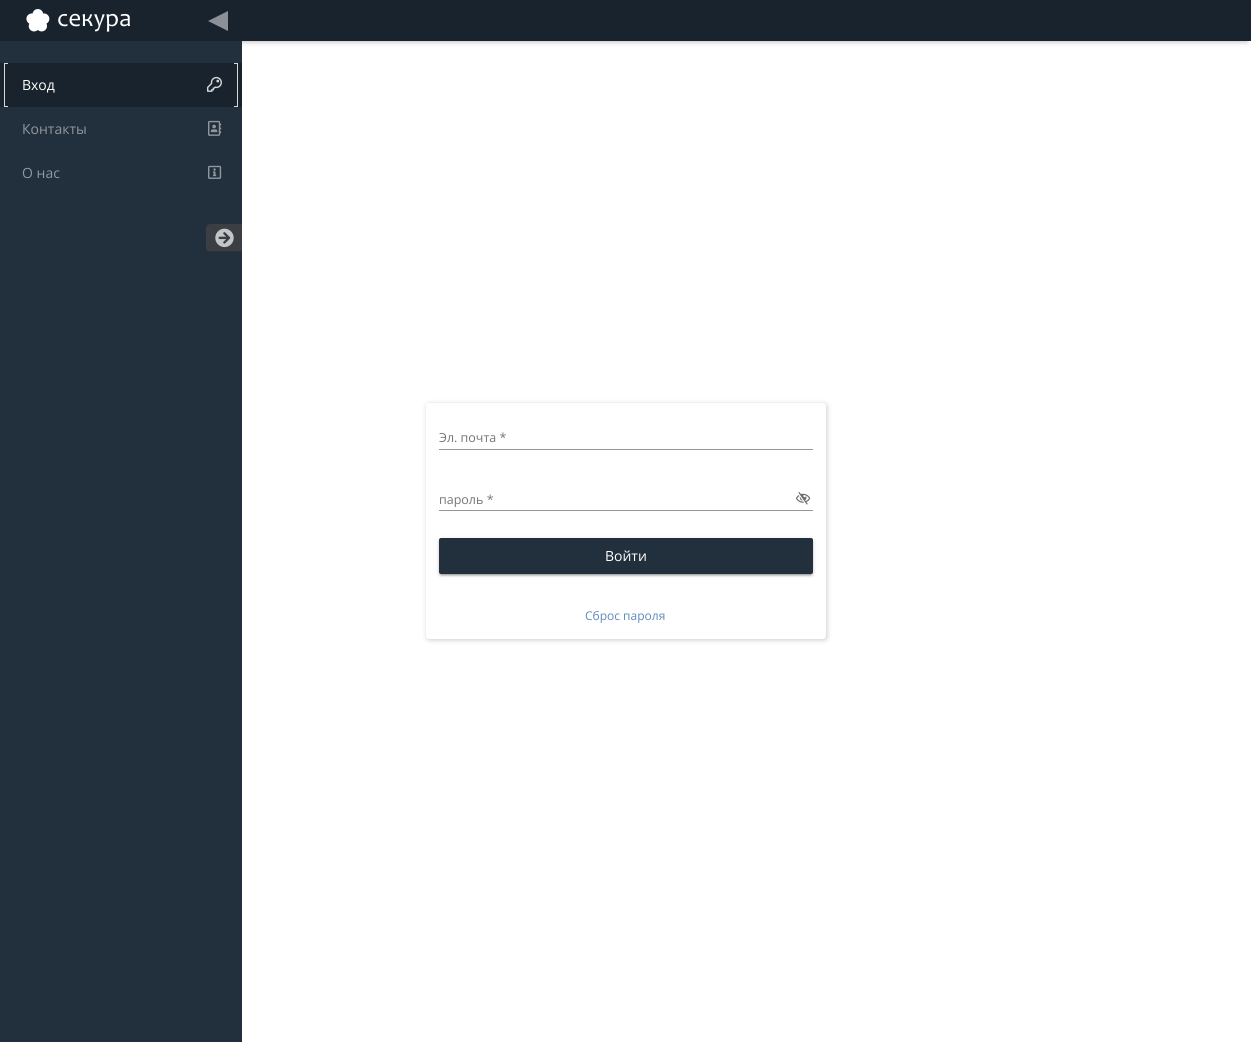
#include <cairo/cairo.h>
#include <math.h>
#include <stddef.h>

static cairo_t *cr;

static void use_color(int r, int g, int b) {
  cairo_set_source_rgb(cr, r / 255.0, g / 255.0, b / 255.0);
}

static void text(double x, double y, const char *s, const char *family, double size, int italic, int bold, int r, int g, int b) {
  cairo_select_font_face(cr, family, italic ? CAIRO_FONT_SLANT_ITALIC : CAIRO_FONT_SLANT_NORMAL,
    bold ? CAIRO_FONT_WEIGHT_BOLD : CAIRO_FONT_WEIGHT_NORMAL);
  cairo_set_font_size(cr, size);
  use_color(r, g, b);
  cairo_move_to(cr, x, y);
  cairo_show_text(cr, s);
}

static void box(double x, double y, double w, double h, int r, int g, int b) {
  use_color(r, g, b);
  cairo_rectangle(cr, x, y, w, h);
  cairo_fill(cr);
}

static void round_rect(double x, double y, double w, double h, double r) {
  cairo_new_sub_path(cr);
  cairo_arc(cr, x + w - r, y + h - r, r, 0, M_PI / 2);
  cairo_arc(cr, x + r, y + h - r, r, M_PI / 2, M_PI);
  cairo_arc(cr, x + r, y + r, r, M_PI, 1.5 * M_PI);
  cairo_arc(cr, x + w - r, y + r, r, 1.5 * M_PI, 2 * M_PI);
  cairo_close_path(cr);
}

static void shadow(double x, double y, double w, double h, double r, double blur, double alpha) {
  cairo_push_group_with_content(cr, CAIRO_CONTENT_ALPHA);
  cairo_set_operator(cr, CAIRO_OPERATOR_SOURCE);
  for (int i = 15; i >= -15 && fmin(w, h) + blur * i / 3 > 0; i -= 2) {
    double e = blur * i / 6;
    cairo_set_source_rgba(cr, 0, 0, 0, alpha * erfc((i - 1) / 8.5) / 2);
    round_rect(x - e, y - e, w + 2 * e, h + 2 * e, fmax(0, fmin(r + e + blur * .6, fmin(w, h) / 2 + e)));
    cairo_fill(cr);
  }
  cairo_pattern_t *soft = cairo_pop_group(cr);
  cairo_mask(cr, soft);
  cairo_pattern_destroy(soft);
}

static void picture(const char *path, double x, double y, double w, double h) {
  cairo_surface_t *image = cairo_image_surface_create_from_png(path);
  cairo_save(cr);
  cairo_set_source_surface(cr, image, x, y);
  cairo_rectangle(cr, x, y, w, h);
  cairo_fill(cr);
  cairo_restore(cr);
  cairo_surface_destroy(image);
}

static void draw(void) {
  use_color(255, 255, 255);
  cairo_paint(cr);
  use_color(0, 0, 0);
  shadow(59, 9, 1188, 33, 0, 2.5, 0.25);
  box(0, 0, 1251, 41, 25, 35, 46);
  box(0, 41, 242, 1001, 34, 47, 60);
  picture("img_01.png", 26, 9, 104, 23);
  use_color(140, 145, 151);
  cairo_new_path(cr);
  cairo_move_to(cr, 228, 11);
  cairo_line_to(cr, 228, 31);
  cairo_line_to(cr, 208, 21);
  cairo_close_path(cr);
  cairo_fill(cr);
  box(0, 63, 242, 44, 25, 35, 46);
  box(4, 63, 4, 1, 216, 216, 216);
  box(4, 106, 4, 1, 216, 216, 216);
  box(4, 63, 1, 44, 216, 216, 216);
  picture("img_02.png", 207, 76, 15, 16);
  box(234, 63, 4, 1, 216, 216, 216);
  box(237, 63, 1, 44, 216, 216, 216);
  box(234, 106, 4, 1, 216, 216, 216);
  picture("img_03.png", 208, 120, 14, 16);
  picture("img_04.png", 208, 165, 14, 14);
  use_color(59, 62, 66);
  cairo_new_path(cr);
  cairo_move_to(cr, 211, 224);
  cairo_line_to(cr, 242, 224);
  cairo_line_to(cr, 242, 252);
  cairo_line_to(cr, 211, 252);
  cairo_curve_to(cr, 208, 252, 206, 250, 206, 247);
  cairo_line_to(cr, 206, 229);
  cairo_curve_to(cr, 206, 226, 208, 224, 211, 224);
  cairo_close_path(cr);
  cairo_fill(cr);
  box(209, 251, 33, 1, 44, 47, 51);
  picture("img_05.png", 215, 228, 19, 20);
  use_color(34, 47, 60);
  shadow(427, 404, 400, 236, 3, 2.5, 0.25);
  use_color(255, 255, 255);
  round_rect(426, 403, 400, 236, 3);
  cairo_fill(cr);
  box(439, 449, 374, 1, 148, 148, 148);
  picture("img_06.png", 796, 492, 15, 13);
  box(439, 510, 374, 1, 148, 148, 148);
  use_color(0, 0, 0);
  shadow(439, 539, 374, 36, 2, 2.5, 0.12);
  shadow(439, 540, 374, 36, 2, 1, 0.14);
  shadow(441, 543, 370, 32, 0, 0.5, 0.2);
  use_color(34, 47, 60);
  round_rect(439, 538, 374, 36, 2);
  cairo_fill(cr);
  text(22, 90, "Вход", "Open Sans", 14, 0, 0, 255, 255, 255);
  text(22, 134, "Контакты", "Open Sans", 14, 0, 0, 145, 151, 158);
  text(22, 178, "О нас", "Open Sans", 14, 0, 0, 145, 151, 158);
  text(439, 442, "Эл. почта *", "Open Sans", 12.5, 0, 0, 117, 117, 117);
  text(439, 504, "пароль *", "Open Sans", 12.5, 0, 0, 117, 117, 117);
  text(605, 561, "Войти", "Open Sans", 14, 0, 0, 255, 255, 255);
  text(585, 620, "Сброс пароля", "Open Sans", 12, 0, 0, 95, 138, 185);
}

int main(void) {
  cairo_surface_t *surface = cairo_image_surface_create(CAIRO_FORMAT_RGB24, 1251, 1042);
  cr = cairo_create(surface);
  cairo_font_options_t *options = cairo_font_options_create();
  cairo_font_options_set_hint_metrics(options, CAIRO_HINT_METRICS_OFF);
  cairo_font_options_set_hint_style(options, CAIRO_HINT_STYLE_NONE);
  cairo_set_font_options(cr, options);
  cairo_set_miter_limit(cr, 4);
  draw();
  cairo_surface_write_to_png(surface, "out.png");
  cairo_font_options_destroy(options);
  cairo_destroy(cr);
  cairo_surface_destroy(surface);
  return 0;
}
